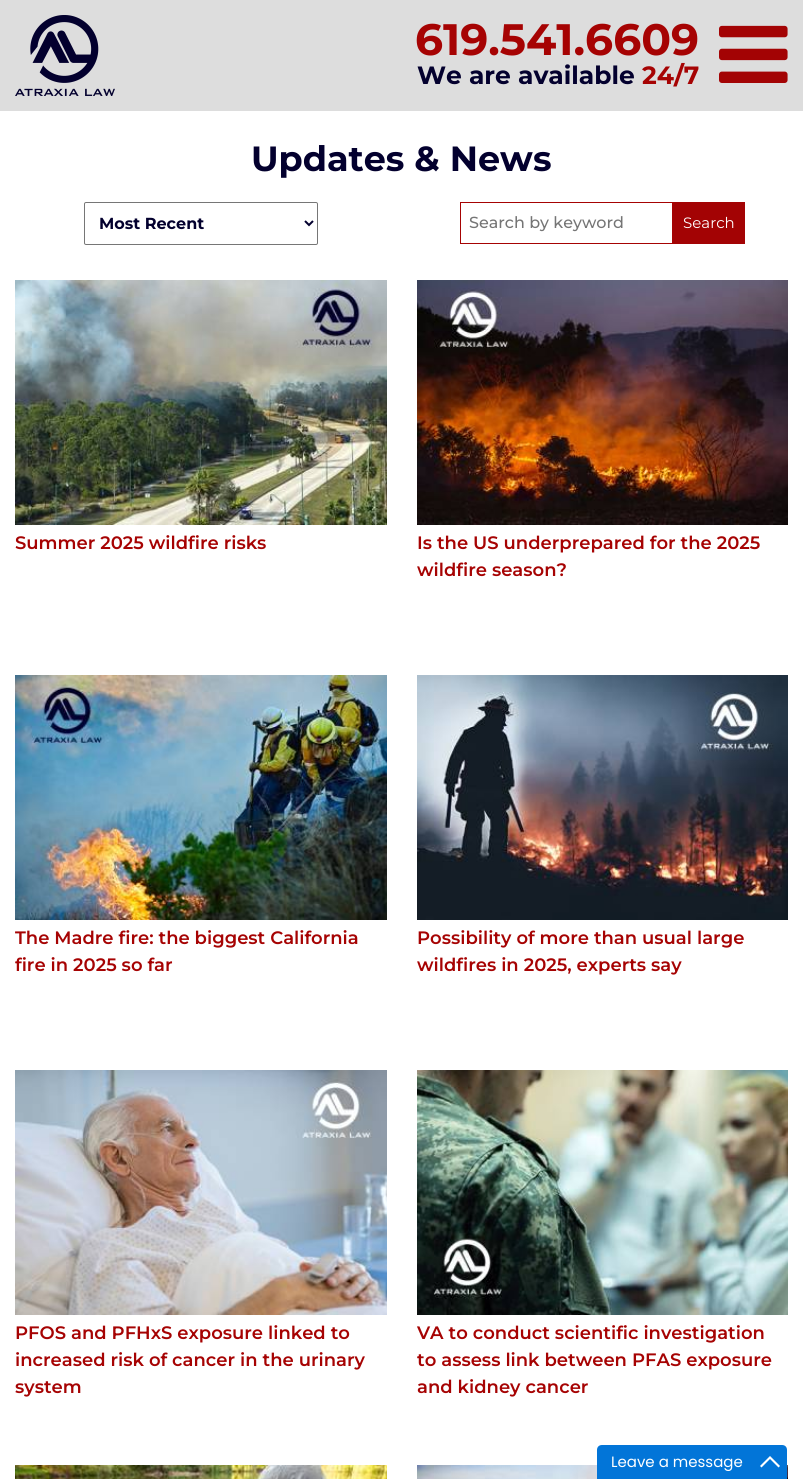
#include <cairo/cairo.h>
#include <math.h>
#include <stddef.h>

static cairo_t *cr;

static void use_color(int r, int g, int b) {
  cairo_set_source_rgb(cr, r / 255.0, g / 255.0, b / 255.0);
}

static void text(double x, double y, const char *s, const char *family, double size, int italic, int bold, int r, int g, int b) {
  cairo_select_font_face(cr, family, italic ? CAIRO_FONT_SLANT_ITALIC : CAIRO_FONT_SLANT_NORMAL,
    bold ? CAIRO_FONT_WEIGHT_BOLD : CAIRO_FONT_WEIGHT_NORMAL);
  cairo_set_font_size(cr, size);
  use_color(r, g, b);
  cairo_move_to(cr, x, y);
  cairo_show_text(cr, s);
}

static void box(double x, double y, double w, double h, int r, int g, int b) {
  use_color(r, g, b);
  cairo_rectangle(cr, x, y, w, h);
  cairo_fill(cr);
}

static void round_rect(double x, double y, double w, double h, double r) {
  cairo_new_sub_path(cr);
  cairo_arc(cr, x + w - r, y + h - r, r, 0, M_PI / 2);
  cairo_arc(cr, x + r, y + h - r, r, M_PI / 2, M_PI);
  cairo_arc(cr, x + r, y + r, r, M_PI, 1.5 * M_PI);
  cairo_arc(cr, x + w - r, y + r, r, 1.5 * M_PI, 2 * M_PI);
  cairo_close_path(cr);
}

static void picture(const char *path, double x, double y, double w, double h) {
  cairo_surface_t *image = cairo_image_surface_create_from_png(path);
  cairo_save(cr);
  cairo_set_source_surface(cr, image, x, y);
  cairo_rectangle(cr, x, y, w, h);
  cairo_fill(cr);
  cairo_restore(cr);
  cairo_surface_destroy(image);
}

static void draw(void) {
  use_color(255, 255, 255);
  cairo_paint(cr);
  box(0, 0, 803, 111, 221, 221, 221);
  picture("img_01.png", 15, 15, 100, 81);
  picture("img_02.png", 719, 25, 69, 58);
  round_rect(84.5, 202.5, 233, 42, 1.5);
  use_color(118, 118, 118);
  cairo_set_line_width(cr, 1);
  cairo_stroke(cr);
  cairo_new_path(cr);
  cairo_move_to(cr, 305, 221);
  cairo_line_to(cr, 309, 225);
  cairo_line_to(cr, 313, 221);
  use_color(3, 0, 46);
  cairo_set_line_width(cr, 2);
  cairo_stroke(cr);
  cairo_rectangle(cr, 460.5, 202.5, 212, 41);
  use_color(166, 3, 3);
  cairo_set_line_width(cr, 1);
  cairo_stroke(cr);
  box(673, 202, 72, 42, 163, 3, 4);
  picture("img_03.png", 15, 280, 372, 245);
  picture("img_04.png", 417, 280, 371, 245);
  picture("img_05.png", 15, 675, 372, 245);
  picture("img_06.png", 417, 675, 371, 245);
  picture("img_07.png", 15, 1070, 372, 245);
  picture("img_08.png", 417, 1070, 371, 245);
  picture("img_09.png", 15, 1465, 372, 14);
  picture("img_10.png", 417, 1465, 371, 14);
  use_color(2, 117, 216);
  cairo_new_path(cr);
  cairo_move_to(cr, 602, 1445);
  cairo_line_to(cr, 782, 1445);
  cairo_curve_to(cr, 785, 1445, 787, 1447, 787, 1450);
  cairo_line_to(cr, 787, 1479);
  cairo_line_to(cr, 597, 1479);
  cairo_line_to(cr, 597, 1450);
  cairo_curve_to(cr, 597, 1447, 599, 1445, 602, 1445);
  cairo_close_path(cr);
  cairo_fill(cr);
  use_color(255, 255, 255);
  cairo_new_path(cr);
  cairo_move_to(cr, 770, 1456);
  cairo_line_to(cr, 780, 1466);
  cairo_line_to(cr, 778.5, 1467.5);
  cairo_line_to(cr, 770, 1459);
  cairo_line_to(cr, 761.5, 1467.5);
  cairo_line_to(cr, 760, 1466);
  cairo_close_path(cr);
  cairo_fill(cr);
  text(415, 55, "619.541.6609", "Montserrat Thin", 44, 0, 0, 166, 3, 3);
  text(417, 84, "We are available", "Montserrat Thin", 25, 0, 0, 3, 0, 46);
  text(642, 84, "24/7", "Montserrat Thin", 25, 0, 0, 166, 3, 3);
  text(251, 171, "Updates & News", "Montserrat Thin", 35, 0, 0, 3, 0, 46);
  text(99, 229, "Most Recent", "Montserrat Thin", 16, 0, 0, 3, 0, 46);
  text(469, 228, "Search by keyword", "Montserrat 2 Thin", 16, 0, 0, 117, 117, 117);
  text(683, 228, "Search", "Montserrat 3 Thin", 15, 0, 0, 255, 255, 255);
  text(15, 549, "Summer 2025 wildfire risks", "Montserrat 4 Thin", 18, 0, 0, 166, 3, 3);
  text(417, 549, "Is the US underprepared for the 2025", "Montserrat 4 Thin", 18, 0, 0, 166, 3, 3);
  text(417, 576, "wildfire season?", "Montserrat 4 Thin", 18, 0, 0, 166, 3, 3);
  text(15, 944, "The Madre fire: the biggest California", "Montserrat 4 Thin", 18, 0, 0, 166, 3, 3);
  text(15, 971, "fire in 2025 so far", "Montserrat 4 Thin", 18, 0, 0, 166, 3, 3);
  text(417, 944, "Possibility of more than usual large", "Montserrat 4 Thin", 18, 0, 0, 166, 3, 3);
  text(417, 971, "wildfires in 2025, experts say", "Montserrat 4 Thin", 18, 0, 0, 166, 3, 3);
  text(15, 1339, "PFOS and PFHxS exposure linked to", "Montserrat 4 Thin", 18, 0, 0, 166, 3, 3);
  text(15, 1366, "increased risk of cancer in the urinary", "Montserrat 4 Thin", 18, 0, 0, 166, 3, 3);
  text(15, 1393, "system", "Montserrat 4 Thin", 18, 0, 0, 166, 3, 3);
  text(417, 1339, "VA to conduct scientific investigation", "Montserrat 4 Thin", 18, 0, 0, 166, 3, 3);
  text(417, 1366, "to assess link between PFAS exposure", "Montserrat 4 Thin", 18, 0, 0, 166, 3, 3);
  text(417, 1393, "and kidney cancer", "Montserrat 4 Thin", 18, 0, 0, 166, 3, 3);
  text(611, 1467, "Leave a message", "Poppins", 15, 0, 0, 255, 255, 255);
}

int main(void) {
  cairo_surface_t *surface = cairo_image_surface_create(CAIRO_FORMAT_RGB24, 803, 1479);
  cr = cairo_create(surface);
  cairo_font_options_t *options = cairo_font_options_create();
  cairo_font_options_set_hint_metrics(options, CAIRO_HINT_METRICS_OFF);
  cairo_font_options_set_hint_style(options, CAIRO_HINT_STYLE_NONE);
  cairo_set_font_options(cr, options);
  cairo_set_miter_limit(cr, 4);
  draw();
  cairo_surface_write_to_png(surface, "out.png");
  cairo_font_options_destroy(options);
  cairo_destroy(cr);
  cairo_surface_destroy(surface);
  return 0;
}
